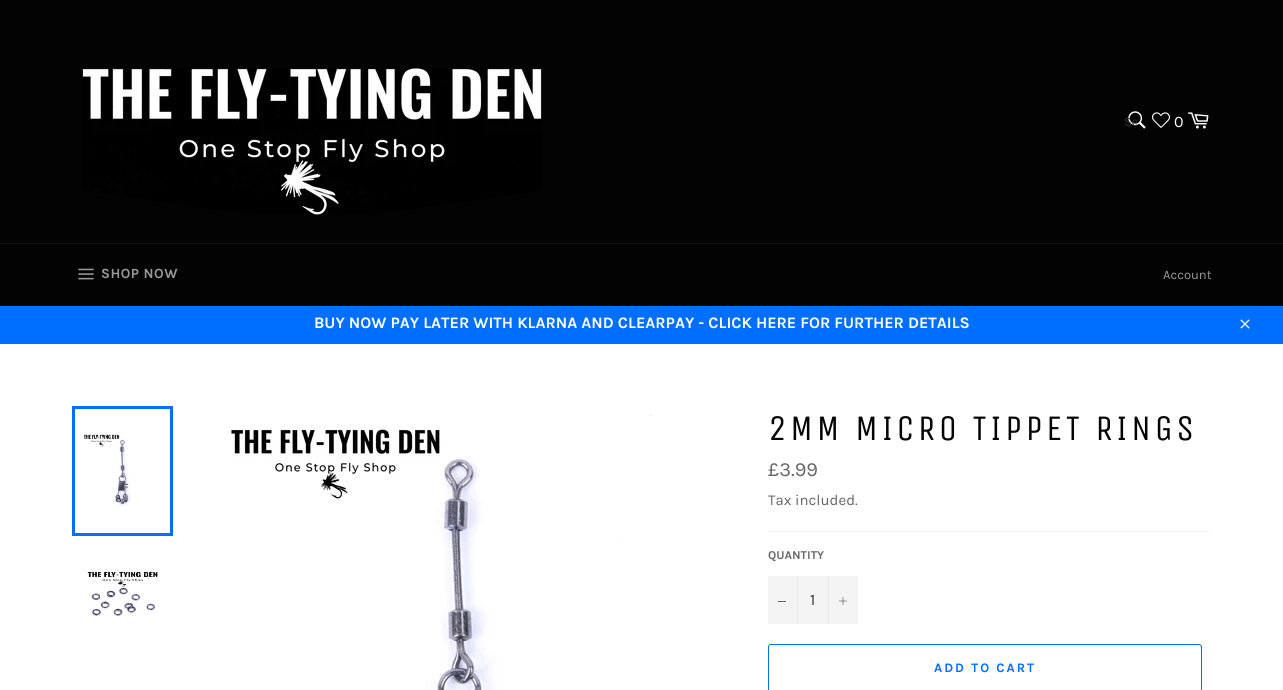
#include <cairo/cairo.h>
#include <math.h>
#include <stddef.h>

static cairo_t *cr;

static void use_color(int r, int g, int b) {
  cairo_set_source_rgb(cr, r / 255.0, g / 255.0, b / 255.0);
}

static void text(double x, double y, const char *s, const char *family, double size, int italic, int bold, int r, int g, int b) {
  cairo_select_font_face(cr, family, italic ? CAIRO_FONT_SLANT_ITALIC : CAIRO_FONT_SLANT_NORMAL,
    bold ? CAIRO_FONT_WEIGHT_BOLD : CAIRO_FONT_WEIGHT_NORMAL);
  cairo_set_font_size(cr, size);
  use_color(r, g, b);
  cairo_move_to(cr, x, y);
  cairo_show_text(cr, s);
}

static void spaced_text(double x, double y, const char *s, double letter, double word) {
  cairo_move_to(cr, x, y);
  while (*s) {
    char ch[5] = {0};
    int n = 0;
    do ch[n++] = *s++; while ((*s & 0xC0) == 0x80);
    cairo_show_text(cr, ch);
    cairo_rel_move_to(cr, letter + word * (*ch == ' '), 0);
  }
}

static void box(double x, double y, double w, double h, int r, int g, int b) {
  use_color(r, g, b);
  cairo_rectangle(cr, x, y, w, h);
  cairo_fill(cr);
}

static void round_rect(double x, double y, double w, double h, double r) {
  cairo_new_sub_path(cr);
  cairo_arc(cr, x + w - r, y + h - r, r, 0, M_PI / 2);
  cairo_arc(cr, x + r, y + h - r, r, M_PI / 2, M_PI);
  cairo_arc(cr, x + r, y + r, r, M_PI, 1.5 * M_PI);
  cairo_arc(cr, x + w - r, y + r, r, 1.5 * M_PI, 2 * M_PI);
  cairo_close_path(cr);
}

static void picture(const char *path, double x, double y, double w, double h) {
  cairo_surface_t *image = cairo_image_surface_create_from_png(path);
  cairo_save(cr);
  cairo_set_source_surface(cr, image, x, y);
  cairo_rectangle(cr, x, y, w, h);
  cairo_fill(cr);
  cairo_restore(cr);
  cairo_surface_destroy(image);
}

static void draw(void) {
  use_color(3, 3, 3);
  cairo_paint(cr);
  picture("img_01.png", 82, 68, 460, 147);
  picture("img_02.png", 1128, 111, 18, 18);
  picture("img_03.png", 1152, 112, 18, 16);
  picture("img_04.png", 1187, 112, 22, 17);
  box(0, 243, 1283, 1, 16, 16, 16);
  picture("img_05.png", 78, 268, 16, 12);
  box(0, 306, 1283, 38, 0, 110, 255);
  picture("img_06.png", 1240, 319, 10, 10);
  box(0, 344, 1283, 346, 255, 255, 255);
  picture("img_07.png", 83, 434, 48, 73);
  cairo_rectangle(cr, 73.5, 407.5, 98, 127);
  use_color(0, 110, 255);
  cairo_set_line_width(cr, 3);
  cairo_stroke(cr);
  picture("img_08.png", 87, 571, 71, 45);
  picture("img_09.png", 231, 414, 421, 276);
  box(768, 531, 444, 1, 247, 247, 247);
  box(768, 576, 90, 48, 244, 244, 244);
  box(797, 576, 1, 48, 231, 231, 231);
  box(778, 601, 8, 1, 102, 102, 102);
  box(828, 576, 1, 48, 231, 231, 231);
  picture("img_10.png", 839, 597, 8, 8);
  round_rect(768.5, 644.5, 433, 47, 2.5);
  use_color(0, 110, 255);
  cairo_set_line_width(cr, 1);
  cairo_stroke(cr);
  cairo_save(cr);
  cairo_rectangle(cr, 1124, 114, 13, 15);
  cairo_clip(cr);
  text(1124, 126, "Se", "Karla", 13, 0, 0, 51, 51, 51);
  cairo_restore(cr);
  text(1174, 127, "0", "Karla", 16, 0, 0, 255, 255, 255);
  cairo_select_font_face(cr, "Karla", CAIRO_FONT_SLANT_NORMAL, CAIRO_FONT_WEIGHT_BOLD);
  cairo_set_font_size(cr, 14);
  use_color(154, 154, 154);
  spaced_text(101, 278, "SHOP NOW", 0.5, 0);
  text(1163, 279, "Account", "Karla", 13, 0, 0, 154, 154, 154);
  text(314, 328, "BUY NOW PAY LATER WITH KLARNA AND CLEARPAY - CLICK HERE FOR FURTHER DETAILS", "Karla", 16, 0, 1, 255, 255, 255);
  cairo_select_font_face(cr, "Unica One", CAIRO_FONT_SLANT_NORMAL, CAIRO_FONT_WEIGHT_NORMAL);
  cairo_set_font_size(cr, 36);
  use_color(3, 3, 3);
  spaced_text(768, 440, "2MM MICRO TIPPET RINGS", 3.6, 0);
  text(768, 476, "£3.99", "Karla", 20, 0, 0, 102, 102, 102);
  text(768, 505, "Tax included.", "Karla", 15, 0, 0, 102, 102, 102);
  text(768, 559, "QUANTITY", "Karla", 12, 0, 1, 102, 102, 102);
  text(810, 605, "1", "Karla", 16, 0, 0, 51, 51, 51);
  cairo_select_font_face(cr, "Karla", CAIRO_FONT_SLANT_NORMAL, CAIRO_FONT_WEIGHT_BOLD);
  cairo_set_font_size(cr, 13);
  use_color(0, 110, 255);
  spaced_text(934, 672, "ADD TO CART", 2, 0);
}

int main(void) {
  cairo_surface_t *surface = cairo_image_surface_create(CAIRO_FORMAT_RGB24, 1283, 690);
  cr = cairo_create(surface);
  cairo_font_options_t *options = cairo_font_options_create();
  cairo_font_options_set_hint_metrics(options, CAIRO_HINT_METRICS_OFF);
  cairo_font_options_set_hint_style(options, CAIRO_HINT_STYLE_NONE);
  cairo_set_font_options(cr, options);
  cairo_set_miter_limit(cr, 4);
  draw();
  cairo_surface_write_to_png(surface, "out.png");
  cairo_font_options_destroy(options);
  cairo_destroy(cr);
  cairo_surface_destroy(surface);
  return 0;
}
